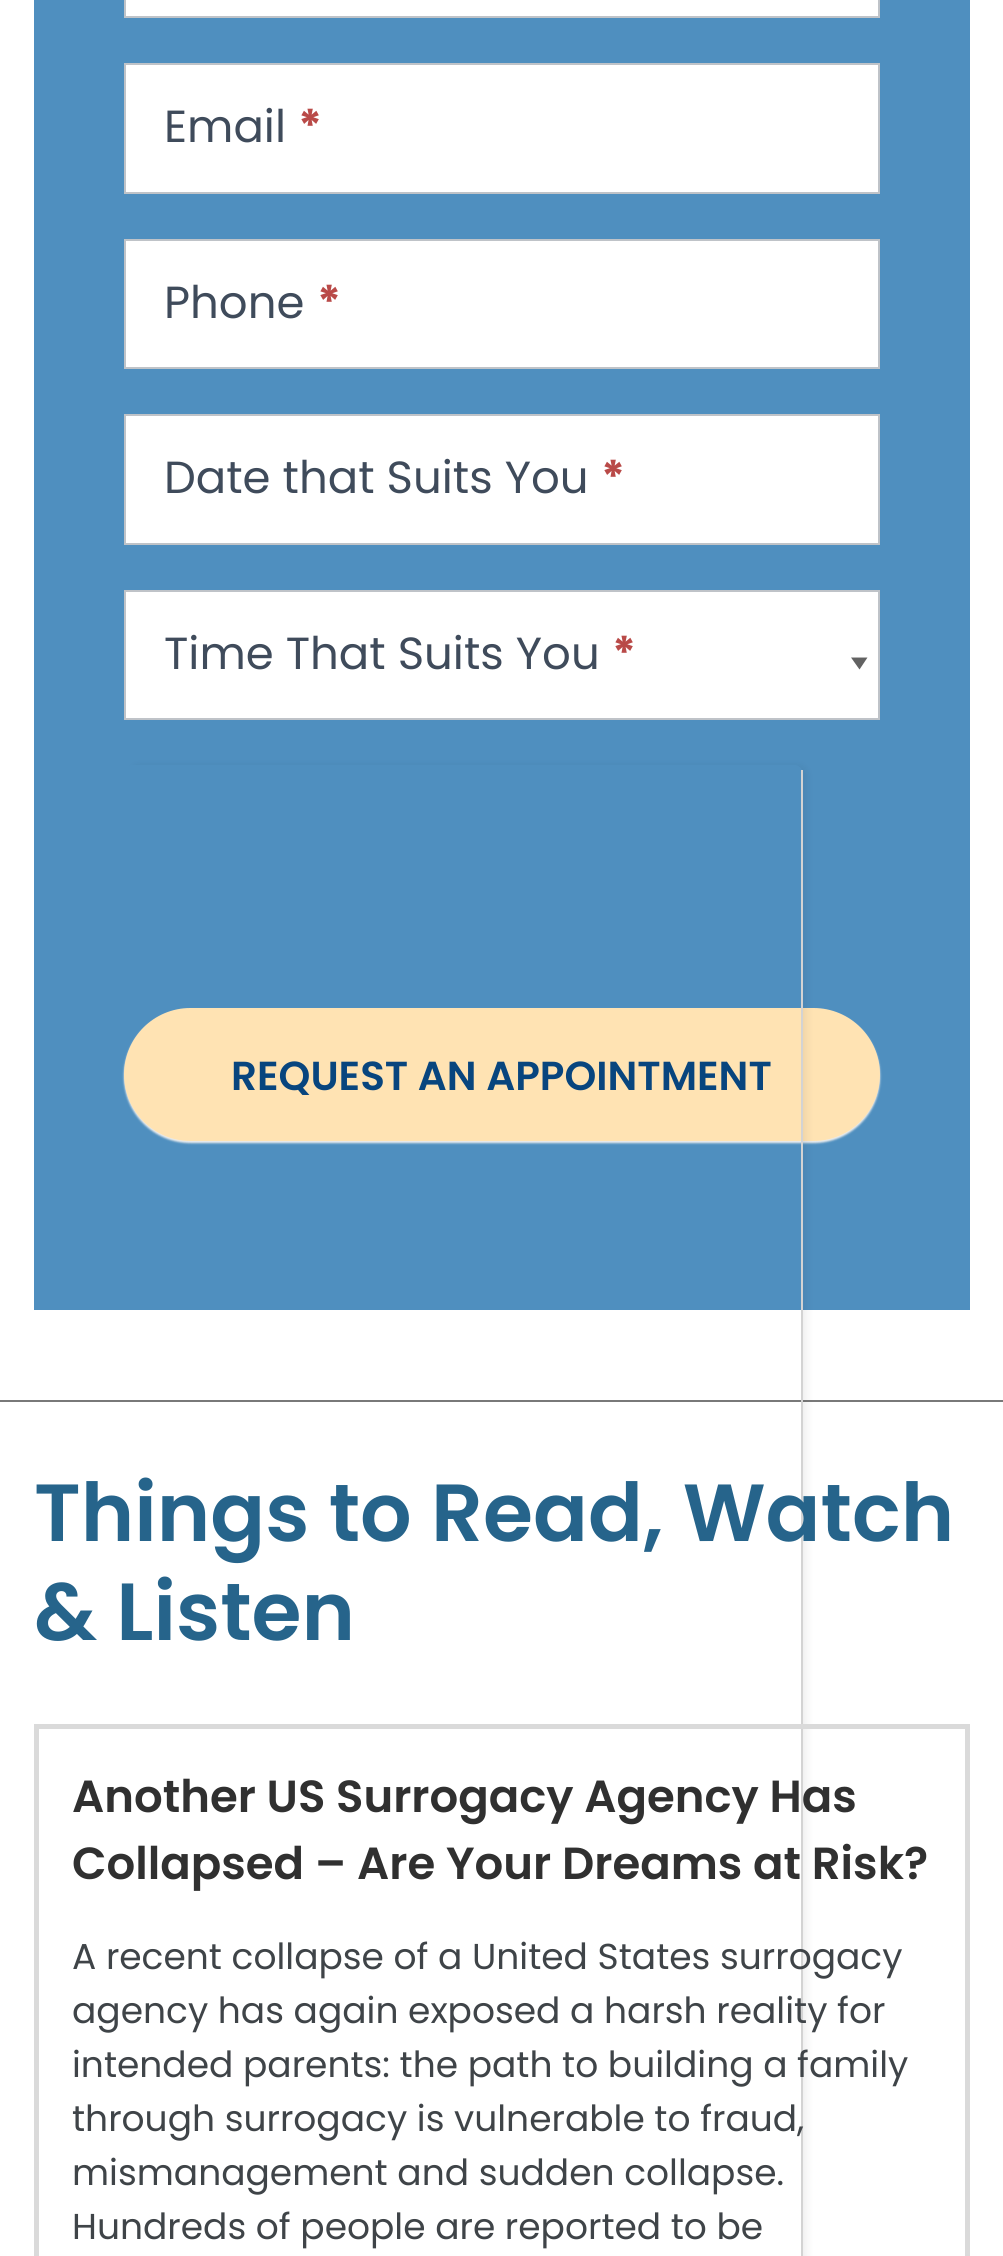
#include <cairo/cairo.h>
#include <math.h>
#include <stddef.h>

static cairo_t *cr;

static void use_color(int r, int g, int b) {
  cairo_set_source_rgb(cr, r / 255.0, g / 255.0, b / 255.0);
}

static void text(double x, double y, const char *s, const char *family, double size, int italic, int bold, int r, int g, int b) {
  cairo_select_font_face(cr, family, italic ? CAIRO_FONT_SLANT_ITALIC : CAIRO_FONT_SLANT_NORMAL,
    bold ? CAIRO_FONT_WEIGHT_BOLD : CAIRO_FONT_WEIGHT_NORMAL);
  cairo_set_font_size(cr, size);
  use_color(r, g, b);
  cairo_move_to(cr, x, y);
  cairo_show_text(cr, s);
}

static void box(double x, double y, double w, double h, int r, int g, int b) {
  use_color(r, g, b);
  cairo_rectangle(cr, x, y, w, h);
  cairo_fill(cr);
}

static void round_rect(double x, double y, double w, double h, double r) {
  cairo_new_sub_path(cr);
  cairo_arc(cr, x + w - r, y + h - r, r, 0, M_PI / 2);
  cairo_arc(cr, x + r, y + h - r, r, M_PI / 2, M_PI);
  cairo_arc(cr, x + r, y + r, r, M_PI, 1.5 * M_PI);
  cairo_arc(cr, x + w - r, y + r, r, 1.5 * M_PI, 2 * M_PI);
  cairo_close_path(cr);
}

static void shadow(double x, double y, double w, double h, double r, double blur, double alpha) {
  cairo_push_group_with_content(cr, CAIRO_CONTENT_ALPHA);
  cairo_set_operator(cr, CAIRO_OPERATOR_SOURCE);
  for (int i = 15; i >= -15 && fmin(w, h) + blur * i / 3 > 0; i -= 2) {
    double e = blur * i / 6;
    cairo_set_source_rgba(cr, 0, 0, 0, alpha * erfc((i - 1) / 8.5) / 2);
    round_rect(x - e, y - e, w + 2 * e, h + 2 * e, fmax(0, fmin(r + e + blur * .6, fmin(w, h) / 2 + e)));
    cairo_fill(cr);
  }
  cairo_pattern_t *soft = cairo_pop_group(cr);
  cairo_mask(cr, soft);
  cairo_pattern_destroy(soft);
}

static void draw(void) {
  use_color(255, 255, 255);
  cairo_paint(cr);
  box(34, 0, 936, 1310, 79, 143, 191);
  use_color(255, 255, 255);
  cairo_rectangle(cr, 125, -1, 754, 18);
  cairo_fill_preserve(cr);
  use_color(191, 195, 200);
  cairo_stroke(cr);
  use_color(255, 255, 255);
  cairo_rectangle(cr, 125, 64, 754, 129);
  cairo_fill_preserve(cr);
  use_color(191, 195, 200);
  cairo_stroke(cr);
  use_color(255, 255, 255);
  cairo_rectangle(cr, 125, 240, 754, 128);
  cairo_fill_preserve(cr);
  use_color(191, 195, 200);
  cairo_stroke(cr);
  use_color(255, 255, 255);
  cairo_rectangle(cr, 125, 415, 754, 129);
  cairo_fill_preserve(cr);
  use_color(191, 195, 200);
  cairo_stroke(cr);
  box(126, 592, 752, 126, 255, 255, 255);
  use_color(98, 98, 98);
  cairo_new_path(cr);
  cairo_move_to(cr, 867.5, 657.5);
  cairo_line_to(cr, 859.5, 669.5);
  cairo_line_to(cr, 851, 657.5);
  cairo_close_path(cr);
  cairo_fill(cr);
  cairo_rectangle(cr, 125, 591, 754, 128);
  use_color(191, 195, 200);
  cairo_stroke(cr);
  use_color(238, 238, 238);
  shadow(124, 1010, 756, 133, 66.5, 1, 1);
  use_color(255, 227, 179);
  round_rect(125, 1009, 754, 131, 65.5);
  cairo_fill_preserve(cr);
  cairo_stroke(cr);
  box(0, 1400, 1003, 2, 121, 121, 121);
  cairo_save(cr);
  cairo_set_fill_rule(cr, CAIRO_FILL_RULE_EVEN_ODD);
  cairo_new_path(cr);
  cairo_move_to(cr, 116, 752);
  cairo_line_to(cr, 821, 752);
  cairo_line_to(cr, 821, 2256);
  cairo_line_to(cr, 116, 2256);
  cairo_close_path(cr);
  cairo_move_to(cr, 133, 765);
  cairo_line_to(cr, 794, 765);
  cairo_curve_to(cr, 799, 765, 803, 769, 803, 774);
  cairo_line_to(cr, 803, 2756);
  cairo_curve_to(cr, 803, 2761, 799, 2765, 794, 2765);
  cairo_line_to(cr, 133, 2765);
  cairo_curve_to(cr, 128, 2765, 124, 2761, 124, 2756);
  cairo_line_to(cr, 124, 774);
  cairo_curve_to(cr, 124, 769, 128, 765, 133, 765);
  cairo_close_path(cr);
  cairo_clip(cr);
  use_color(0, 0, 0);
  shadow(131, 767, 675, 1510, 7, 4.5, 0.08);
  cairo_restore(cr);
  box(801, 770, 2, 1486, 211, 211, 211);
  cairo_rectangle(cr, 36.5, 1726.5, 931, 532);
  use_color(218, 218, 218);
  cairo_set_line_width(cr, 5);
  cairo_stroke(cr);
  text(164, 142, "Email", "Poppins", 45, 0, 0, 63, 75, 91);
  text(298, 142, "*", "Poppins", 45, 0, 1, 185, 74, 72);
  text(164, 318, "Phone", "Poppins", 45, 0, 0, 63, 75, 91);
  text(317, 318, "*", "Poppins", 45, 0, 1, 185, 74, 72);
  text(164, 493, "Date that Suits You", "Poppins", 45, 0, 0, 63, 75, 91);
  text(601, 493, "*", "Poppins", 45, 0, 1, 185, 74, 72);
  text(164, 669, "Time That Suits You", "Poppins", 45, 0, 0, 63, 75, 91);
  text(612, 669, "*", "Poppins", 45, 0, 1, 185, 74, 72);
  text(231, 1090, "REQUEST AN APPOINTMENT", "Poppins SemiBold", 40.5, 0, 0, 8, 69, 126);
  text(34, 1541, "Things to Read, Watch", "Poppins SemiBold", 81, 0, 0, 38, 100, 139);
  text(34, 1640, "& Listen", "Poppins SemiBold", 81, 0, 0, 38, 100, 139);
  text(72, 1812, "Another US Surrogacy Agency Has", "Poppins SemiBold", 45, 0, 0, 48, 48, 48);
  text(72, 1879, "Collapsed – Are Your Dreams at Risk?", "Poppins SemiBold", 45, 0, 0, 48, 48, 48);
  text(72, 1969, "A recent collapse of a United States surrogacy", "Poppins", 36, 0, 0, 63, 68, 72);
  text(72, 2023, "agency has again exposed a harsh reality for", "Poppins", 36, 0, 0, 63, 68, 72);
  text(72, 2077, "intended parents: the path to building a family", "Poppins", 36, 0, 0, 63, 68, 72);
  text(72, 2131, "through surrogacy is vulnerable to fraud,", "Poppins", 36, 0, 0, 63, 68, 72);
  text(72, 2185, "mismanagement and sudden collapse.", "Poppins", 36, 0, 0, 63, 68, 72);
  text(72, 2239, "Hundreds of people are reported to be", "Poppins", 36, 0, 0, 63, 68, 72);
}

int main(void) {
  cairo_surface_t *surface = cairo_image_surface_create(CAIRO_FORMAT_RGB24, 1003, 2256);
  cr = cairo_create(surface);
  cairo_font_options_t *options = cairo_font_options_create();
  cairo_font_options_set_hint_metrics(options, CAIRO_HINT_METRICS_OFF);
  cairo_font_options_set_hint_style(options, CAIRO_HINT_STYLE_NONE);
  cairo_set_font_options(cr, options);
  cairo_set_miter_limit(cr, 4);
  draw();
  cairo_surface_write_to_png(surface, "out.png");
  cairo_font_options_destroy(options);
  cairo_destroy(cr);
  cairo_surface_destroy(surface);
  return 0;
}
